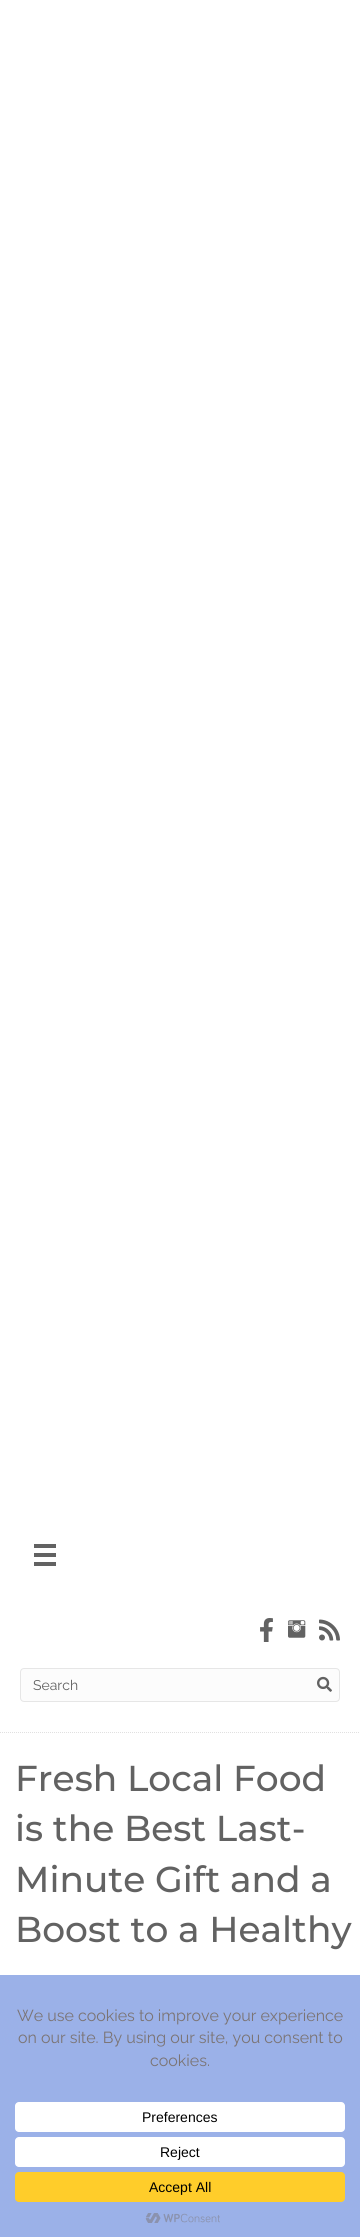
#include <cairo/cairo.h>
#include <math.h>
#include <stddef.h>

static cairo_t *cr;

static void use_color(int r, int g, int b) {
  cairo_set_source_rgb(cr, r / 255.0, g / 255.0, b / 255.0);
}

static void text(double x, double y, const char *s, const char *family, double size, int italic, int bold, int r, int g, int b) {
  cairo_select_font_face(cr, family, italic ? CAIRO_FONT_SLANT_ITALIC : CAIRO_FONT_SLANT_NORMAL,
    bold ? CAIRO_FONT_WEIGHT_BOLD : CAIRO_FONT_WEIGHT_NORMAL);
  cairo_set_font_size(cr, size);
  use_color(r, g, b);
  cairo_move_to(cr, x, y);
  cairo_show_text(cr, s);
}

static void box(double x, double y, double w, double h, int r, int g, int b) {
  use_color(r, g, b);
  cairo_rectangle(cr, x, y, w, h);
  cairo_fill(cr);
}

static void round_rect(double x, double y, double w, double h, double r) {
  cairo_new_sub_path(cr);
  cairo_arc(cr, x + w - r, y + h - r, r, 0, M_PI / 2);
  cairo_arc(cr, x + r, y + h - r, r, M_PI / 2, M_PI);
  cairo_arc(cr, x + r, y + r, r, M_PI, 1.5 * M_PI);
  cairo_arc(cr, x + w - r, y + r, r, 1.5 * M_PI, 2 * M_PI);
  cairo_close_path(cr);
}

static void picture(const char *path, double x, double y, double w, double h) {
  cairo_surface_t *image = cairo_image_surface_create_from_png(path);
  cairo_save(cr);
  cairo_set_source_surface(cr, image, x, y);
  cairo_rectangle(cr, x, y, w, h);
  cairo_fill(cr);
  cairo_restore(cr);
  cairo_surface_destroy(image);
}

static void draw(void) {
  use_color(255, 255, 255);
  cairo_paint(cr);
  cairo_new_path(cr);
  cairo_move_to(cr, 0, 1732.5);
  cairo_line_to(cr, 360, 1732.5);
  use_color(224, 224, 224);
  cairo_set_line_width(cr, 1);
  cairo_set_dash(cr, (double[]){1, 1}, 2, 0);
  cairo_stroke(cr);
  box(34, 1544, 22, 4, 98, 98, 98);
  box(34, 1553, 22, 4, 98, 98, 98);
  box(34, 1562, 22, 4, 98, 98, 98);
  picture("img_01.png", 260, 1618, 13, 24);
  picture("img_02.png", 288, 1620, 18, 18);
  picture("img_03.png", 319, 1619, 21, 22);
  use_color(252, 252, 252);
  round_rect(20.5, 1668.5, 319, 33, 3.5);
  cairo_fill_preserve(cr);
  use_color(230, 230, 230);
  cairo_set_dash(cr, NULL, 0, 0);
  cairo_stroke(cr);
  picture("img_04.png", 317, 1676, 15, 16);
  box(0, 1975, 360, 262, 155, 177, 232);
  use_color(255, 255, 255);
  round_rect(15, 2102, 330, 30, 4);
  cairo_fill(cr);
  round_rect(15, 2137, 330, 30, 4);
  cairo_fill(cr);
  use_color(255, 205, 42);
  round_rect(15, 2172, 330, 30, 4);
  cairo_fill(cr);
  picture("img_05.png", 145, 2213, 75, 10);
  text(33, 1690, "Search", "Raleway", 14, 0, 0, 98, 98, 98);
  text(15, 1791, "Fresh Local Food", "Montserrat Medium", 36, 0, 0, 98, 98, 98);
  text(15, 1841, "is the Best Last-", "Montserrat Medium", 36, 0, 0, 98, 98, 98);
  text(15, 1892, "Minute Gift and a", "Montserrat Medium", 36, 0, 0, 98, 98, 98);
  text(15, 1942, "Boost to a Healthy", "Montserrat Medium", 36, 0, 0, 98, 98, 98);
  text(17, 2021, "We use cookies to improve your experience", "Raleway", 16, 0, 0, 123, 116, 116);
  text(18, 2043, "on our site. By using our site, you consent to", "Raleway", 16, 0, 0, 123, 116, 116);
  text(150, 2066, "cookies.", "Raleway", 16, 0, 0, 123, 116, 116);
  text(142, 2122, "Preferences", "Liberation Sans", 14, 0, 0, 0, 0, 0);
  text(160, 2157, "Reject", "Liberation Sans", 14, 0, 0, 0, 0, 0);
  text(149, 2192, "Accept All", "Liberation Sans", 14, 0, 0, 0, 0, 0);
}

int main(void) {
  cairo_surface_t *surface = cairo_image_surface_create(CAIRO_FORMAT_RGB24, 360, 2237);
  cr = cairo_create(surface);
  cairo_font_options_t *options = cairo_font_options_create();
  cairo_font_options_set_hint_metrics(options, CAIRO_HINT_METRICS_OFF);
  cairo_font_options_set_hint_style(options, CAIRO_HINT_STYLE_NONE);
  cairo_set_font_options(cr, options);
  cairo_set_miter_limit(cr, 4);
  draw();
  cairo_surface_write_to_png(surface, "out.png");
  cairo_font_options_destroy(options);
  cairo_destroy(cr);
  cairo_surface_destroy(surface);
  return 0;
}
